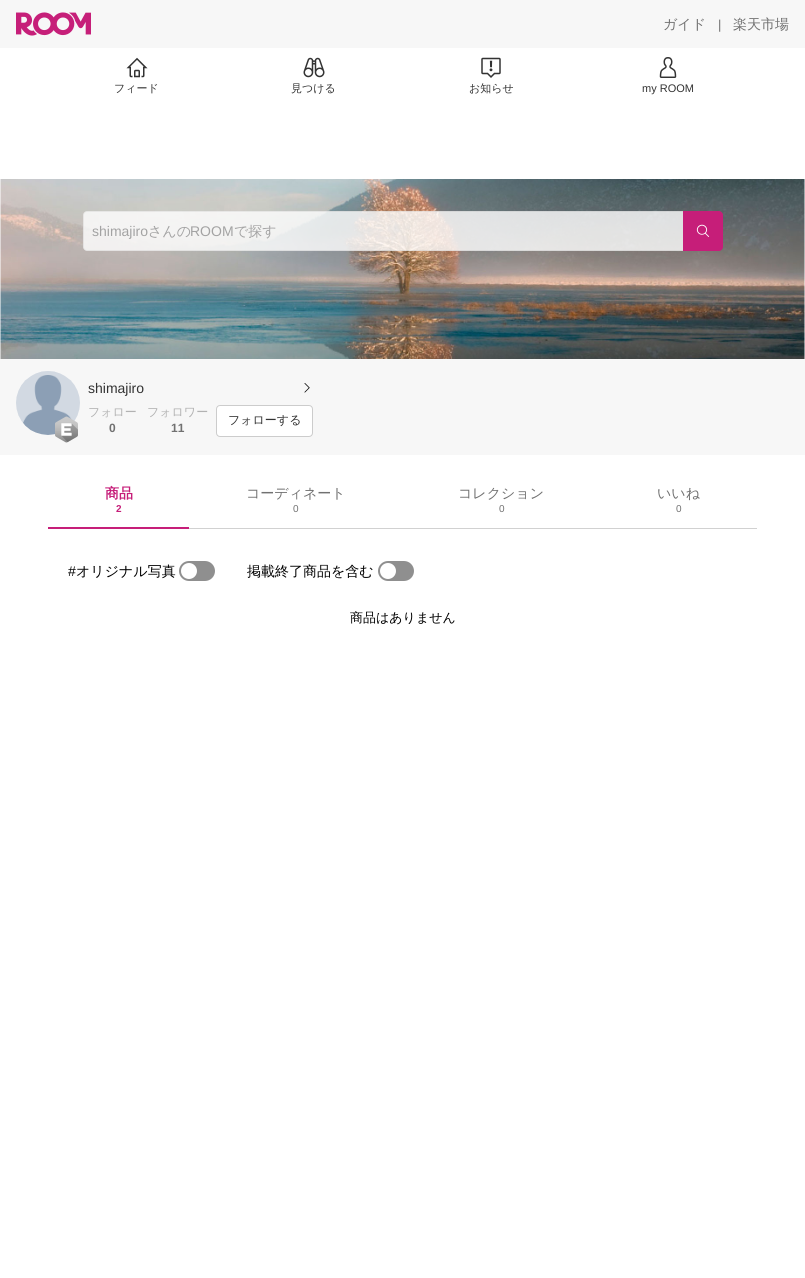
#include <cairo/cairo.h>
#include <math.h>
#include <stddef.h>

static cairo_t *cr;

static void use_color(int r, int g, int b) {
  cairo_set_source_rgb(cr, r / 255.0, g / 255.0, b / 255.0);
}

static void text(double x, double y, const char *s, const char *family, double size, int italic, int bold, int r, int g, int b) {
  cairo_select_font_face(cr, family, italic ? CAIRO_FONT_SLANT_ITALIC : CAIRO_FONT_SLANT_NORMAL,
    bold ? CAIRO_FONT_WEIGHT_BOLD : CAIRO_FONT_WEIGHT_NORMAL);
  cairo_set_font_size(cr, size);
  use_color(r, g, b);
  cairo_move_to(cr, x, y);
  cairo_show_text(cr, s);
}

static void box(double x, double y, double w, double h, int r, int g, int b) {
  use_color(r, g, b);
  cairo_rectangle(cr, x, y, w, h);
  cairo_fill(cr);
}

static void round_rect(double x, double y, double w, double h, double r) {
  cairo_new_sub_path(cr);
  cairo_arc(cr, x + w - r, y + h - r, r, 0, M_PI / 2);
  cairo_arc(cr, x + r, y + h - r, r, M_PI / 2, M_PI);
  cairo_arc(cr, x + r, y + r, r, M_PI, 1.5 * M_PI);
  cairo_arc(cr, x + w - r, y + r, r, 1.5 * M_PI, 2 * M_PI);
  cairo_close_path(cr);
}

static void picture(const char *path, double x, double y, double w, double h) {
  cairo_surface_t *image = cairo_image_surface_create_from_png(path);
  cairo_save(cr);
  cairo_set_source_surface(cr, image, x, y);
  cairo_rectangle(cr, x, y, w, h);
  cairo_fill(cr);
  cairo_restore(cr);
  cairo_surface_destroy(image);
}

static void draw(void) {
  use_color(255, 255, 255);
  cairo_paint(cr);
  box(0, 0, 805, 48, 247, 247, 247);
  picture("img_01.png", 16, 12, 75, 24);
  picture("img_02.png", 126, 57, 22, 21);
  picture("img_03.png", 303, 57, 22, 21);
  picture("img_04.png", 481, 57, 20, 21);
  picture("img_05.png", 659, 57, 18, 21);
  picture("img_06.png", 0, 179, 805, 180);
  cairo_set_source_rgba(cr, 1, 1, 1, 0.8);
  cairo_new_path(cr);
  cairo_move_to(cr, 87, 211);
  cairo_line_to(cr, 683, 211);
  cairo_line_to(cr, 683, 251);
  cairo_line_to(cr, 87, 251);
  cairo_curve_to(cr, 85, 251, 83, 249, 83, 247);
  cairo_line_to(cr, 83, 215);
  cairo_curve_to(cr, 83, 213, 85, 211, 87, 211);
  cairo_close_path(cr);
  cairo_fill(cr);
  cairo_set_source_rgba(cr, 0, 0, 0, 0.06);
  cairo_set_fill_rule(cr, CAIRO_FILL_RULE_EVEN_ODD);
  cairo_new_path(cr);
  cairo_move_to(cr, 87, 211);
  cairo_line_to(cr, 683, 211);
  cairo_line_to(cr, 683, 251);
  cairo_line_to(cr, 87, 251);
  cairo_curve_to(cr, 85, 251, 83, 249, 83, 247);
  cairo_line_to(cr, 83, 215);
  cairo_curve_to(cr, 83, 213, 85, 211, 87, 211);
  cairo_close_path(cr);
  cairo_move_to(cr, 87, 212);
  cairo_line_to(cr, 683, 212);
  cairo_line_to(cr, 683, 250);
  cairo_line_to(cr, 87, 250);
  cairo_curve_to(cr, 85, 250, 84, 249, 84, 247);
  cairo_line_to(cr, 84, 215);
  cairo_curve_to(cr, 84, 213, 85, 212, 87, 212);
  cairo_close_path(cr);
  cairo_fill(cr);
  use_color(198, 30, 121);
  cairo_new_path(cr);
  cairo_move_to(cr, 683, 211);
  cairo_line_to(cr, 719, 211);
  cairo_curve_to(cr, 721, 211, 723, 213, 723, 215);
  cairo_line_to(cr, 723, 247);
  cairo_curve_to(cr, 723, 249, 721, 251, 719, 251);
  cairo_line_to(cr, 683, 251);
  cairo_close_path(cr);
  cairo_fill(cr);
  picture("img_07.png", 696, 224, 14, 13);
  box(0, 359, 805, 96, 247, 247, 247);
  picture("img_08.png", 16, 371, 64, 64);
  picture("img_09.png", 55, 416, 23, 27);
  picture("img_10.png", 304, 383, 6, 10);
  use_color(255, 255, 255);
  round_rect(216, 405, 97, 32, 4);
  cairo_fill(cr);
  round_rect(216.5, 405.5, 96, 31, 3.5);
  cairo_set_source_rgba(cr, 0, 0, 0, 0.2);
  cairo_set_line_width(cr, 1);
  cairo_stroke(cr);
  box(48, 527, 141, 2, 198, 30, 121);
  box(189, 528, 568, 1, 209, 209, 209);
  use_color(143, 143, 143);
  round_rect(180, 562, 34, 18, 9);
  cairo_fill_preserve(cr);
  cairo_set_line_width(cr, 2);
  cairo_stroke(cr);
  use_color(255, 255, 255);
  cairo_arc(cr, 189, 571, 8, 0, 2 * M_PI);
  cairo_fill(cr);
  use_color(143, 143, 143);
  round_rect(379, 562, 34, 18, 9);
  cairo_fill_preserve(cr);
  cairo_stroke(cr);
  use_color(255, 255, 255);
  cairo_arc(cr, 388, 571, 8, 0, 2 * M_PI);
  cairo_fill(cr);
  text(663, 29, "ガイド", "WenQuanYi Zen Hei Medium", 14, 0, 0, 113, 113, 113);
  text(718, 29, "|", "Liberation Sans", 13, 0, 0, 113, 113, 113);
  text(733, 29, "楽天市場", "WenQuanYi Zen Hei Medium", 14, 0, 0, 113, 113, 113);
  text(114, 92, "フィード", "WenQuanYi Zen Hei Medium", 11, 0, 0, 51, 51, 51);
  text(291, 92, "見つける", "WenQuanYi Zen Hei Medium", 11, 0, 0, 51, 51, 51);
  text(469, 92, "お知らせ", "WenQuanYi Zen Hei Medium", 11, 0, 0, 51, 51, 51);
  text(642, 92, "my ROOM", "Liberation Sans", 11, 0, 0, 51, 51, 51);
  text(92, 236, "shimajiro", "Liberation Sans", 14, 0, 0, 163, 163, 163);
  text(148, 236, "さんの", "WenQuanYi Zen Hei Medium", 14, 0, 0, 163, 163, 163);
  text(190, 236, "ROOM", "Liberation Sans", 14, 0, 0, 163, 163, 163);
  text(234, 236, "で探す", "WenQuanYi Zen Hei Medium", 14, 0, 0, 163, 163, 163);
  text(88, 393, "shimajiro", "Liberation Sans", 14, 0, 0, 51, 51, 51);
  text(88, 416, "フォロー", "WenQuanYi Zen Hei Medium", 12, 0, 0, 178, 178, 178);
  text(109, 432, "0", "Liberation Sans", 12, 0, 1, 113, 113, 113);
  text(147, 416, "フォロワー", "WenQuanYi Zen Hei Medium", 12, 0, 0, 178, 178, 178);
  text(171, 432, "11", "Liberation Sans", 12, 0, 1, 113, 113, 113);
  text(228, 424, "フォローする", "WenQuanYi Zen Hei Medium", 12, 0, 0, 51, 51, 51);
  text(105, 498, "商品", "WenQuanYi Zen Hei", 14, 0, 1, 198, 30, 121);
  text(116, 512, "2", "Liberation Sans", 10, 0, 1, 198, 30, 121);
  text(246, 498, "コーディネート", "WenQuanYi Zen Hei Medium", 14, 0, 0, 113, 113, 113);
  text(293, 512, "0", "Liberation Sans", 10, 0, 0, 113, 113, 113);
  text(458, 498, "コレクション", "WenQuanYi Zen Hei Medium", 14, 0, 0, 113, 113, 113);
  text(499, 512, "0", "Liberation Sans", 10, 0, 0, 113, 113, 113);
  text(657, 498, "いいね", "WenQuanYi Zen Hei Medium", 14, 0, 0, 113, 113, 113);
  text(676, 512, "0", "Liberation Sans", 10, 0, 0, 113, 113, 113);
  text(68, 576, "#", "Liberation Sans", 14, 0, 0, 0, 0, 0);
  text(76, 576, "オリジナル写真", "WenQuanYi Zen Hei Medium", 14, 0, 0, 0, 0, 0);
  text(247, 576, "掲載終了商品を含む", "WenQuanYi Zen Hei Medium", 14, 0, 0, 0, 0, 0);
  text(350, 622, "商品はありません", "WenQuanYi Zen Hei Medium", 13, 0, 0, 0, 0, 0);
}

int main(void) {
  cairo_surface_t *surface = cairo_image_surface_create(CAIRO_FORMAT_RGB24, 805, 1278);
  cr = cairo_create(surface);
  cairo_font_options_t *options = cairo_font_options_create();
  cairo_font_options_set_hint_metrics(options, CAIRO_HINT_METRICS_OFF);
  cairo_font_options_set_hint_style(options, CAIRO_HINT_STYLE_NONE);
  cairo_set_font_options(cr, options);
  cairo_set_miter_limit(cr, 4);
  draw();
  cairo_surface_write_to_png(surface, "out.png");
  cairo_font_options_destroy(options);
  cairo_destroy(cr);
  cairo_surface_destroy(surface);
  return 0;
}
